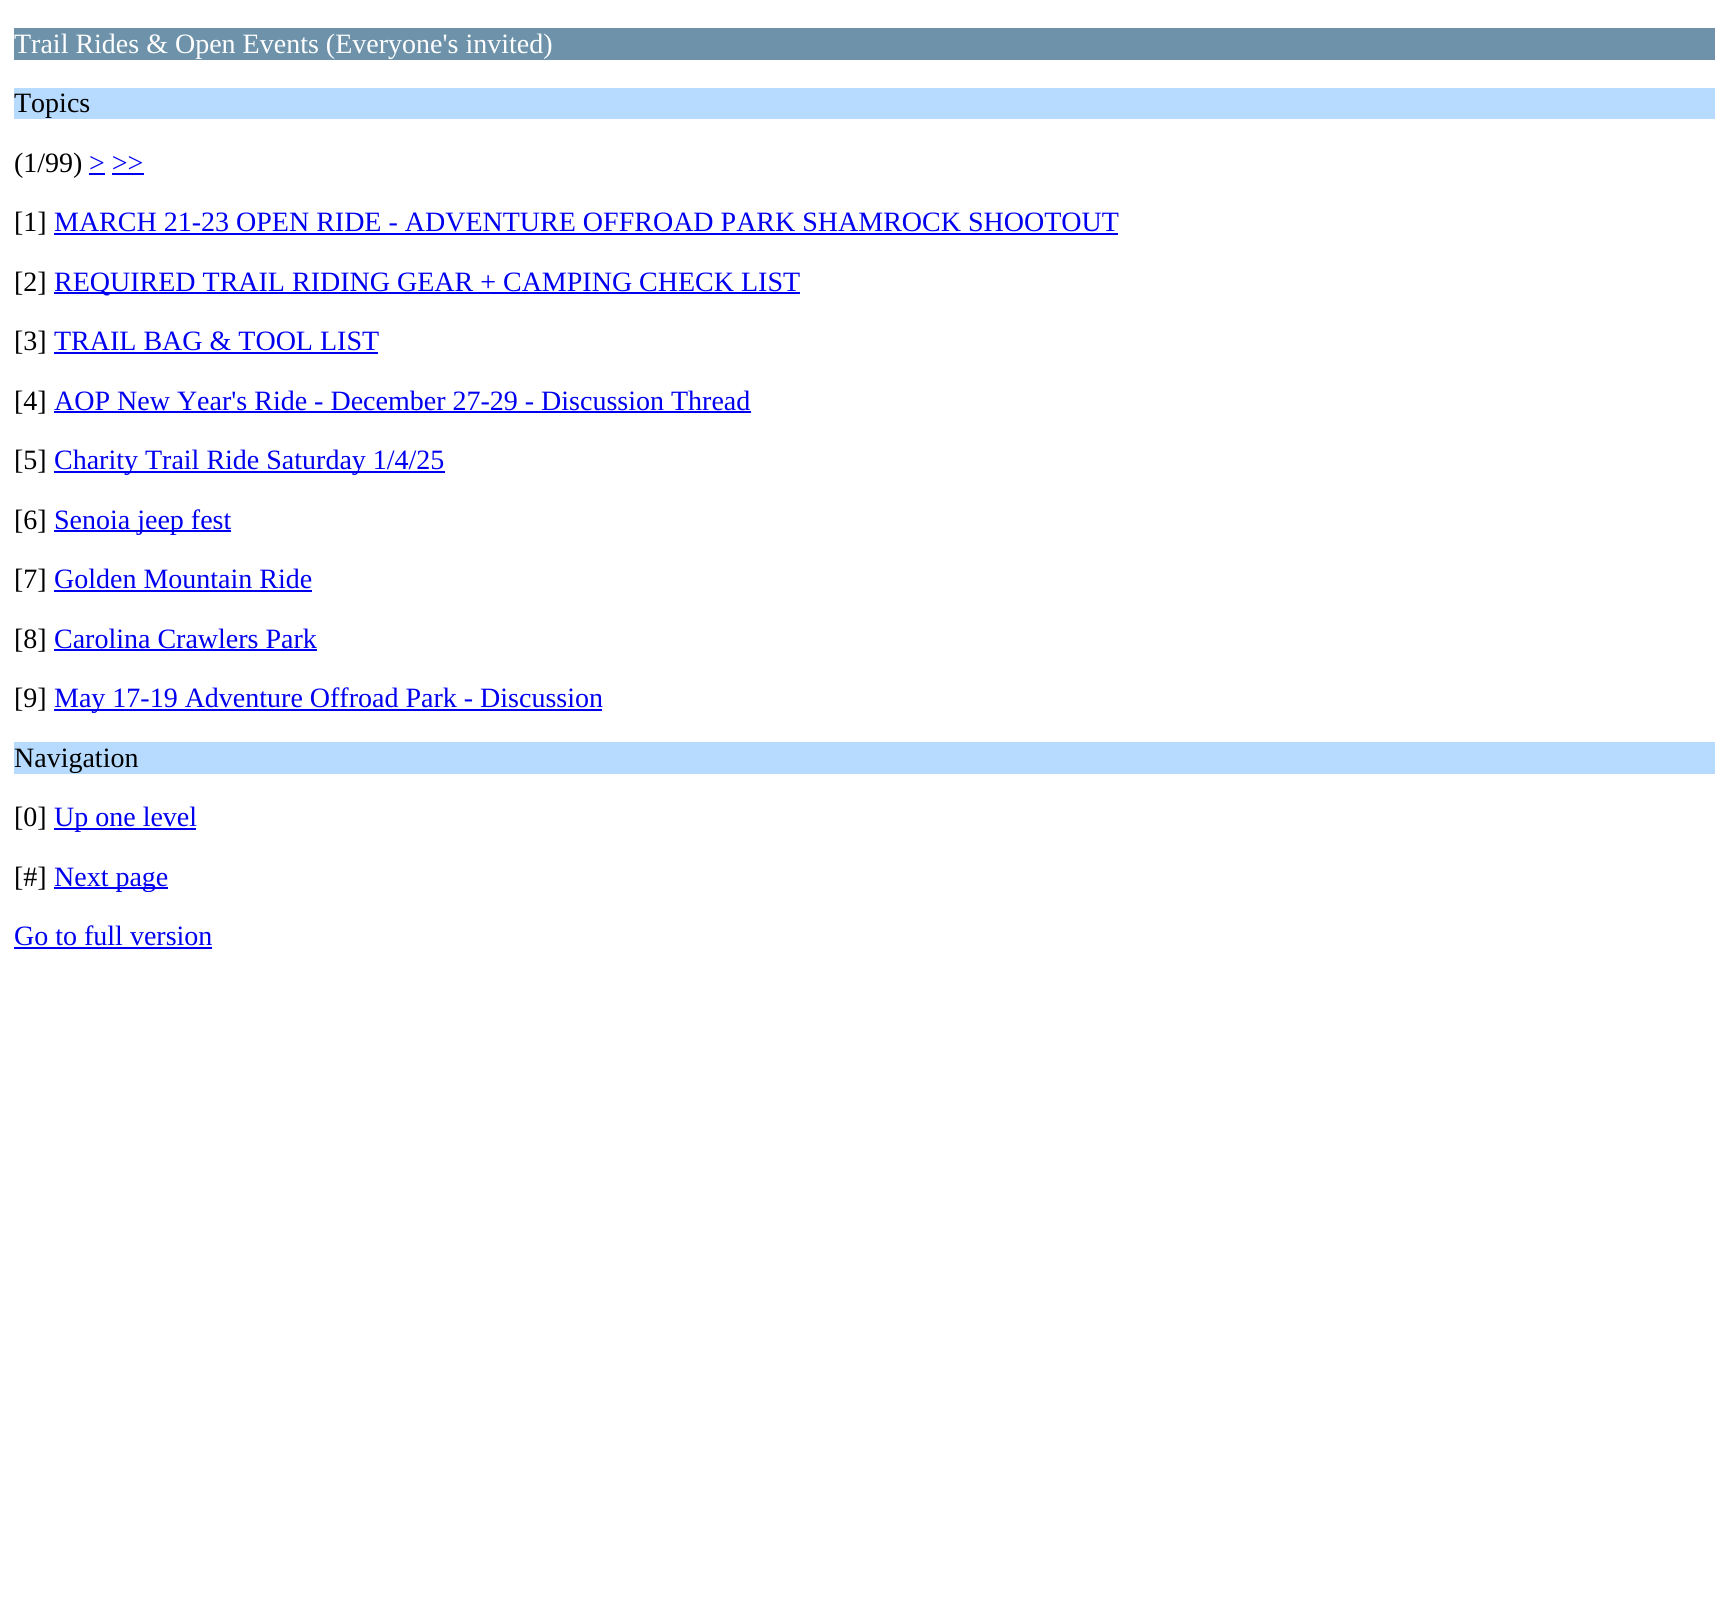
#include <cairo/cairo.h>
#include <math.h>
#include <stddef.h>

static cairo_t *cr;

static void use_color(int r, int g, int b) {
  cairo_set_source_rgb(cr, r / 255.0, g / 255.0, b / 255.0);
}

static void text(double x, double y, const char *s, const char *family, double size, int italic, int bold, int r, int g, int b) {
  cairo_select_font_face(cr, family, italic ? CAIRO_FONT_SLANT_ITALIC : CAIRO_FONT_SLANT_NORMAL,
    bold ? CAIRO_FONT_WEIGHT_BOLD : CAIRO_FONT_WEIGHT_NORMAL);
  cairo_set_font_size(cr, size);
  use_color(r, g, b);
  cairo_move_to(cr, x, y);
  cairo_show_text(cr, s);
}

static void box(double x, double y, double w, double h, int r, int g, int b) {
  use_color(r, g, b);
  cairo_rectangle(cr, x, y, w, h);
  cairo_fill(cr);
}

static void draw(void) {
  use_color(255, 255, 255);
  cairo_paint(cr);
  box(14, 28, 1701, 32, 109, 146, 170);
  box(14, 88, 1701, 31, 182, 219, 255);
  box(89, 173, 16, 2, 0, 0, 238);
  box(112, 173, 32, 2, 0, 0, 238);
  box(54, 233, 1064, 2, 0, 0, 238);
  box(54, 292, 746, 2, 0, 0, 238);
  box(54, 352, 324, 2, 0, 0, 238);
  box(54, 411, 697, 2, 0, 0, 238);
  box(54, 471, 391, 2, 0, 0, 238);
  box(54, 530, 177, 2, 0, 0, 238);
  box(54, 590, 258, 2, 0, 0, 238);
  box(54, 649, 263, 2, 0, 0, 238);
  box(54, 709, 548, 2, 0, 0, 238);
  box(14, 742, 1701, 32, 182, 219, 255);
  box(54, 828, 142, 2, 0, 0, 238);
  box(54, 887, 114, 2, 0, 0, 238);
  box(14, 947, 198, 2, 0, 0, 238);
  text(14, 53, "Trail Rides & Open Events (Everyone's invited)", "Liberation Serif", 28, 0, 0, 255, 255, 255);
  text(14, 112, "Topics", "Liberation Serif", 28, 0, 0, 0, 0, 0);
  text(14, 172, "(1/99)", "Liberation Serif", 28, 0, 0, 0, 0, 0);
  text(89, 172, "> >>", "Liberation Serif", 28, 0, 0, 0, 0, 238);
  text(14, 231, "[1]", "Liberation Serif", 28, 0, 0, 0, 0, 0);
  text(54, 231, "MARCH 21-23 OPEN RIDE - ADVENTURE OFFROAD PARK SHAMROCK SHOOTOUT", "Liberation Serif", 28, 0, 0, 0, 0, 238);
  text(14, 291, "[2]", "Liberation Serif", 28, 0, 0, 0, 0, 0);
  text(54, 291, "REQUIRED TRAIL RIDING GEAR + CAMPING CHECK LIST", "Liberation Serif", 28, 0, 0, 0, 0, 238);
  text(14, 350, "[3]", "Liberation Serif", 28, 0, 0, 0, 0, 0);
  text(54, 350, "TRAIL BAG & TOOL LIST", "Liberation Serif", 28, 0, 0, 0, 0, 238);
  text(14, 410, "[4]", "Liberation Serif", 28, 0, 0, 0, 0, 0);
  text(54, 410, "AOP New Year's Ride - December 27-29 - Discussion Thread", "Liberation Serif", 28, 0, 0, 0, 0, 238);
  text(14, 469, "[5]", "Liberation Serif", 28, 0, 0, 0, 0, 0);
  text(54, 469, "Charity Trail Ride Saturday 1/4/25", "Liberation Serif", 28, 0, 0, 0, 0, 238);
  text(14, 529, "[6]", "Liberation Serif", 28, 0, 0, 0, 0, 0);
  text(54, 529, "Senoia jeep fest", "Liberation Serif", 28, 0, 0, 0, 0, 238);
  text(14, 588, "[7]", "Liberation Serif", 28, 0, 0, 0, 0, 0);
  text(54, 588, "Golden Mountain Ride", "Liberation Serif", 28, 0, 0, 0, 0, 238);
  text(14, 648, "[8]", "Liberation Serif", 28, 0, 0, 0, 0, 0);
  text(54, 648, "Carolina Crawlers Park", "Liberation Serif", 28, 0, 0, 0, 0, 238);
  text(14, 707, "[9]", "Liberation Serif", 28, 0, 0, 0, 0, 0);
  text(54, 707, "May 17-19 Adventure Offroad Park - Discussion", "Liberation Serif", 28, 0, 0, 0, 0, 238);
  text(14, 767, "Navigation", "Liberation Serif", 28, 0, 0, 0, 0, 0);
  text(14, 826, "[0]", "Liberation Serif", 28, 0, 0, 0, 0, 0);
  text(54, 826, "Up one level", "Liberation Serif", 28, 0, 0, 0, 0, 238);
  text(14, 886, "[#]", "Liberation Serif", 28, 0, 0, 0, 0, 0);
  text(54, 886, "Next page", "Liberation Serif", 28, 0, 0, 0, 0, 238);
  text(14, 945, "Go to full version", "Liberation Serif", 28, 0, 0, 0, 0, 238);
}

int main(void) {
  cairo_surface_t *surface = cairo_image_surface_create(CAIRO_FORMAT_RGB24, 1729, 1613);
  cr = cairo_create(surface);
  cairo_font_options_t *options = cairo_font_options_create();
  cairo_font_options_set_hint_metrics(options, CAIRO_HINT_METRICS_OFF);
  cairo_font_options_set_hint_style(options, CAIRO_HINT_STYLE_NONE);
  cairo_set_font_options(cr, options);
  cairo_set_miter_limit(cr, 4);
  draw();
  cairo_surface_write_to_png(surface, "out.png");
  cairo_font_options_destroy(options);
  cairo_destroy(cr);
  cairo_surface_destroy(surface);
  return 0;
}
